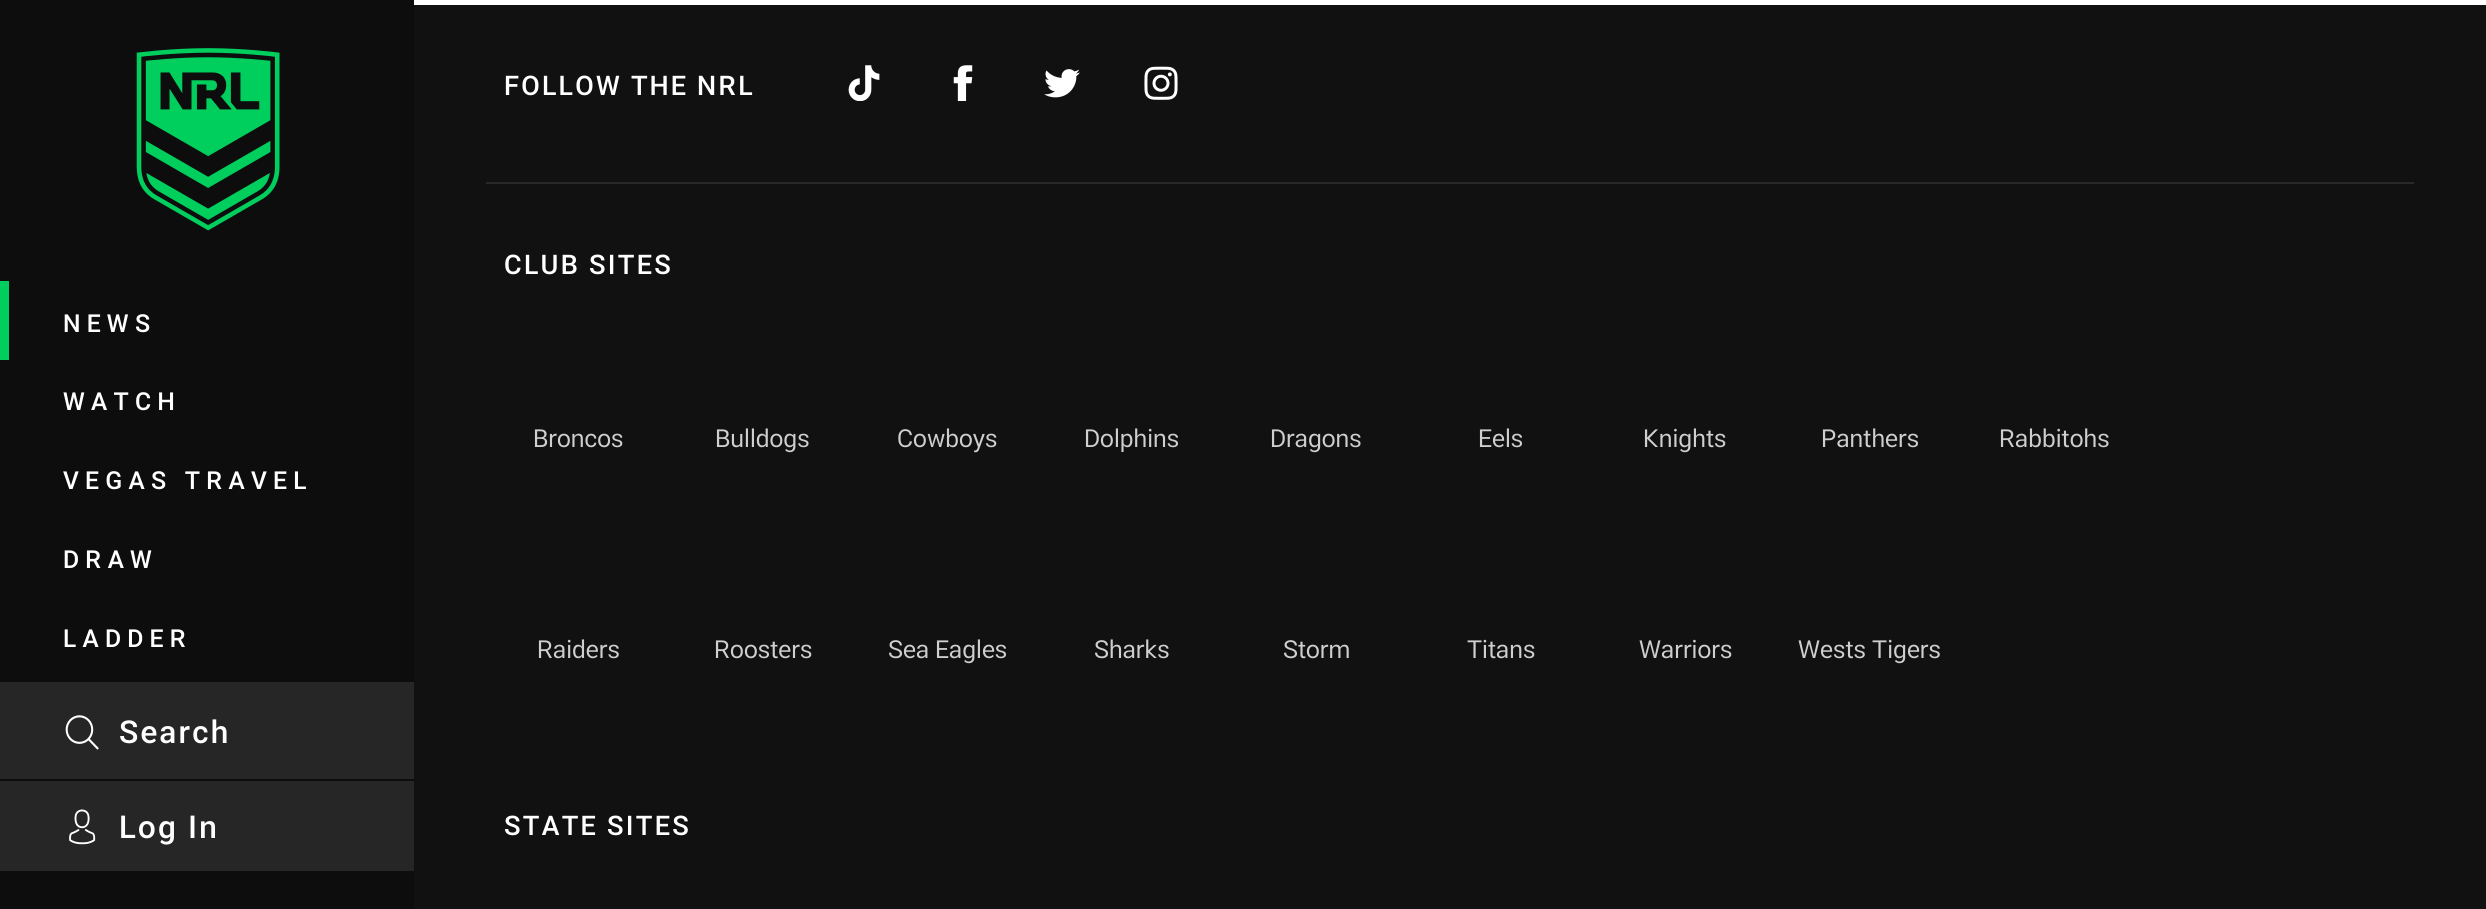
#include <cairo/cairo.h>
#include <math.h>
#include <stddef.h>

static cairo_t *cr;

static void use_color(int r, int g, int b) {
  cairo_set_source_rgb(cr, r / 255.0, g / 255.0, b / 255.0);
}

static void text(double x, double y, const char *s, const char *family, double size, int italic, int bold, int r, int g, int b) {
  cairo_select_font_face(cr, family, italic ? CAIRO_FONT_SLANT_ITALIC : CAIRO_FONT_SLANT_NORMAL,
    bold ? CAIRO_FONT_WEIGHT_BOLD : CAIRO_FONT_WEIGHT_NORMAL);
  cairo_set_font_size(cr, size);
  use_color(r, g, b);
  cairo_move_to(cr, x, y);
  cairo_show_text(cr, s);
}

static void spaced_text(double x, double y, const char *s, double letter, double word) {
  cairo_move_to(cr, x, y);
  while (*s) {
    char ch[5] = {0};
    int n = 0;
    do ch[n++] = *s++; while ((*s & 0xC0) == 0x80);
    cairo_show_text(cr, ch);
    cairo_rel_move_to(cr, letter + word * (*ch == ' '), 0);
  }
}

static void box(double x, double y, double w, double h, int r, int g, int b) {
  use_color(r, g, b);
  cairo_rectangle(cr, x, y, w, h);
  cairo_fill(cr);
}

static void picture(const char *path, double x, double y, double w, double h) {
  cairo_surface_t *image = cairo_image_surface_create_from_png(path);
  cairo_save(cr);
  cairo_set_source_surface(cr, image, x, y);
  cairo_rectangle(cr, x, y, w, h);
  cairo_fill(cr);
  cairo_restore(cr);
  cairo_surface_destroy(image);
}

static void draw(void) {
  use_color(255, 255, 255);
  cairo_paint(cr);
  box(0, 0, 414, 909, 13, 13, 13);
  picture("img_01.png", 136, 48, 144, 183);
  box(0, 281, 9, 79, 0, 207, 93);
  box(0, 682, 414, 97, 38, 38, 38);
  picture("img_02.png", 65, 715, 34, 35);
  box(0, 781, 414, 90, 38, 38, 38);
  picture("img_03.png", 69, 809, 27, 36);
  box(414, 5, 2072, 904, 17, 17, 17);
  box(486, 182, 1928, 2, 41, 41, 41);
  picture("img_04.png", 848, 65, 32, 36);
  picture("img_05.png", 953, 65, 20, 36);
  picture("img_06.png", 1044, 69, 36, 29);
  picture("img_07.png", 1144, 66, 34, 34);
  cairo_select_font_face(cr, "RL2 Medium", CAIRO_FONT_SLANT_NORMAL, CAIRO_FONT_WEIGHT_NORMAL);
  cairo_set_font_size(cr, 24.75);
  use_color(255, 255, 255);
  spaced_text(63, 332, "NEWS", 6.25, 0);
  spaced_text(63, 410, "WATCH", 6.25, 0);
  spaced_text(63, 489, "VEGAS TRAVEL", 6.25, 0);
  spaced_text(63, 568, "DRAW", 6.25, 0);
  spaced_text(63, 647, "LADDER", 6.25, 0);
  cairo_set_font_size(cr, 31.5);
  spaced_text(119, 743, "Search", 2.25, 0);
  spaced_text(119, 838, "Log In", 2.25, 0);
  cairo_set_font_size(cr, 27);
  spaced_text(504, 95, "FOLLOW THE NRL", 2.25, 0);
  spaced_text(504, 274, "CLUB SITES", 2.25, 0);
  text(533, 447, "Broncos", "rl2", 24.75, 0, 0, 207, 207, 207);
  text(715, 447, "Bulldogs", "rl2", 24.75, 0, 0, 207, 207, 207);
  text(897, 447, "Cowboys", "rl2", 24.75, 0, 0, 207, 207, 207);
  text(1084, 447, "Dolphins", "rl2", 24.75, 0, 0, 207, 207, 207);
  text(1270, 447, "Dragons", "rl2", 24.75, 0, 0, 207, 207, 207);
  text(1478, 447, "Eels", "rl2", 24.75, 0, 0, 207, 207, 207);
  text(1643, 447, "Knights", "rl2", 24.75, 0, 0, 207, 207, 207);
  text(1821, 447, "Panthers", "rl2", 24.75, 0, 0, 207, 207, 207);
  text(1999, 447, "Rabbitohs", "rl2", 24.75, 0, 0, 207, 207, 207);
  text(537, 658, "Raiders", "rl2", 24.75, 0, 0, 207, 207, 207);
  text(714, 658, "Roosters", "rl2", 24.75, 0, 0, 207, 207, 207);
  text(888, 658, "Sea Eagles", "rl2", 24.75, 0, 0, 207, 207, 207);
  text(1094, 658, "Sharks", "rl2", 24.75, 0, 0, 207, 207, 207);
  text(1283, 658, "Storm", "rl2", 24.75, 0, 0, 207, 207, 207);
  text(1467, 658, "Titans", "rl2", 24.75, 0, 0, 207, 207, 207);
  text(1639, 658, "Warriors", "rl2", 24.75, 0, 0, 207, 207, 207);
  text(1798, 658, "Wests Tigers", "rl2", 24.75, 0, 0, 207, 207, 207);
  cairo_select_font_face(cr, "RL2 Medium", CAIRO_FONT_SLANT_NORMAL, CAIRO_FONT_WEIGHT_NORMAL);
  cairo_set_font_size(cr, 27);
  use_color(255, 255, 255);
  spaced_text(504, 835, "STATE SITES", 2.25, 0);
}

int main(void) {
  cairo_surface_t *surface = cairo_image_surface_create(CAIRO_FORMAT_RGB24, 2486, 909);
  cr = cairo_create(surface);
  cairo_font_options_t *options = cairo_font_options_create();
  cairo_font_options_set_hint_metrics(options, CAIRO_HINT_METRICS_OFF);
  cairo_font_options_set_hint_style(options, CAIRO_HINT_STYLE_NONE);
  cairo_set_font_options(cr, options);
  cairo_set_miter_limit(cr, 4);
  draw();
  cairo_surface_write_to_png(surface, "out.png");
  cairo_font_options_destroy(options);
  cairo_destroy(cr);
  cairo_surface_destroy(surface);
  return 0;
}
